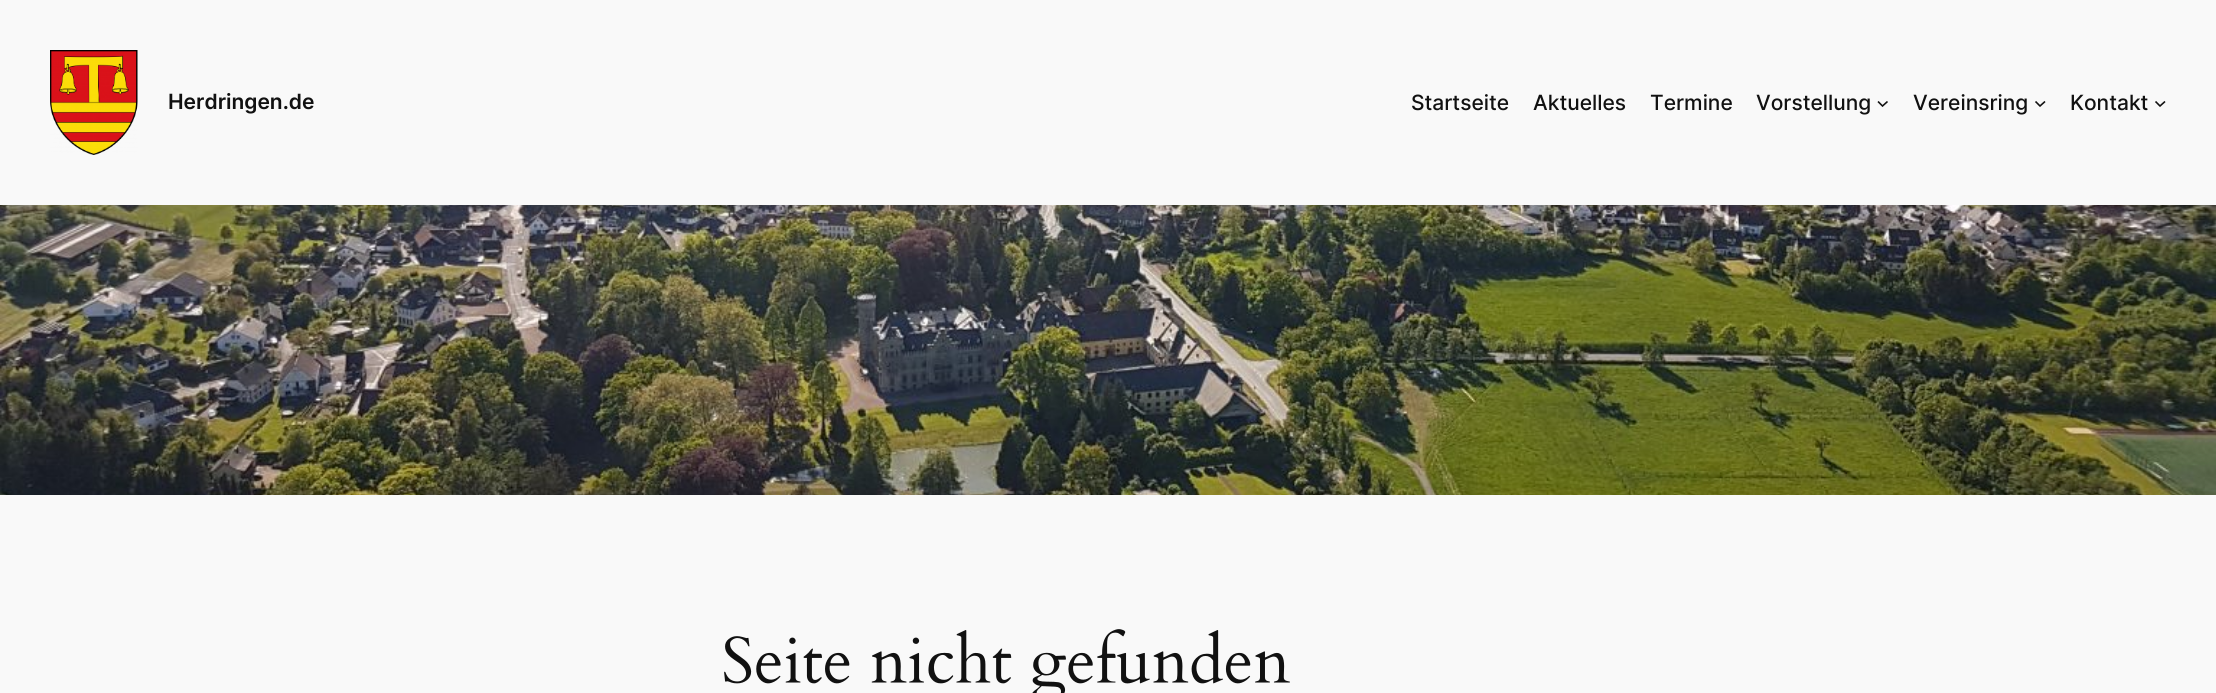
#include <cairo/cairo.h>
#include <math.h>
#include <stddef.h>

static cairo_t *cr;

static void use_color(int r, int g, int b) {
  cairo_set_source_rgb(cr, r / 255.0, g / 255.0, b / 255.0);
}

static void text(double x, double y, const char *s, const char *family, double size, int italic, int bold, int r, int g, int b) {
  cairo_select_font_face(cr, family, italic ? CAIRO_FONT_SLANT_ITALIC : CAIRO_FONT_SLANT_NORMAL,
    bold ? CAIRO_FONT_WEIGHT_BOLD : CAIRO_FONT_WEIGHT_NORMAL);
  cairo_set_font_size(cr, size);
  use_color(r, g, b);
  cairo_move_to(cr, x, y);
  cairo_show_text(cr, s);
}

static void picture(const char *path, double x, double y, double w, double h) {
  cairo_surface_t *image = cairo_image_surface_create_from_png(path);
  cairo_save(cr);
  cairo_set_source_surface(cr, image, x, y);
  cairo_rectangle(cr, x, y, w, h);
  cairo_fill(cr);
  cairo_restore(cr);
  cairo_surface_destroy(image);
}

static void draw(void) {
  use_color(249, 249, 249);
  cairo_paint(cr);
  picture("img_01.png", 50, 50, 88, 105);
  cairo_new_path(cr);
  cairo_move_to(cr, 1878, 101.5);
  cairo_line_to(cr, 1882.5, 106);
  cairo_line_to(cr, 1887.5, 101.5);
  use_color(17, 17, 17);
  cairo_set_line_width(cr, 1.6);
  cairo_stroke(cr);
  cairo_new_path(cr);
  cairo_move_to(cr, 2035.5, 101.5);
  cairo_line_to(cr, 2040, 106);
  cairo_line_to(cr, 2045, 101.5);
  cairo_stroke(cr);
  cairo_new_path(cr);
  cairo_move_to(cr, 2155.5, 101.5);
  cairo_line_to(cr, 2160, 106);
  cairo_line_to(cr, 2165, 101.5);
  cairo_stroke(cr);
  picture("img_02.png", 0, 205, 2216, 290);
  picture("img_03.png", 724, 629, 566, 64);
  text(168, 109, "Herdringen.de", "Inter SemiBold", 21, 0, 0, 17, 17, 17);
  text(1411, 110, "Startseite", "Inter Medium", 21, 0, 0, 17, 17, 17);
  text(1533, 110, "Aktuelles", "Inter Medium", 21, 0, 0, 17, 17, 17);
  text(1650, 110, "Termine", "Inter Medium", 21, 0, 0, 17, 17, 17);
  text(1756, 110, "Vorstellung", "Inter Medium", 21, 0, 0, 17, 17, 17);
  text(1913, 110, "Vereinsring", "Inter Medium", 21, 0, 0, 17, 17, 17);
  text(2070, 110, "Kontakt", "Inter Medium", 21, 0, 0, 17, 17, 17);
}

int main(void) {
  cairo_surface_t *surface = cairo_image_surface_create(CAIRO_FORMAT_RGB24, 2216, 693);
  cr = cairo_create(surface);
  cairo_font_options_t *options = cairo_font_options_create();
  cairo_font_options_set_hint_metrics(options, CAIRO_HINT_METRICS_OFF);
  cairo_font_options_set_hint_style(options, CAIRO_HINT_STYLE_NONE);
  cairo_set_font_options(cr, options);
  cairo_set_miter_limit(cr, 4);
  draw();
  cairo_surface_write_to_png(surface, "out.png");
  cairo_font_options_destroy(options);
  cairo_destroy(cr);
  cairo_surface_destroy(surface);
  return 0;
}
